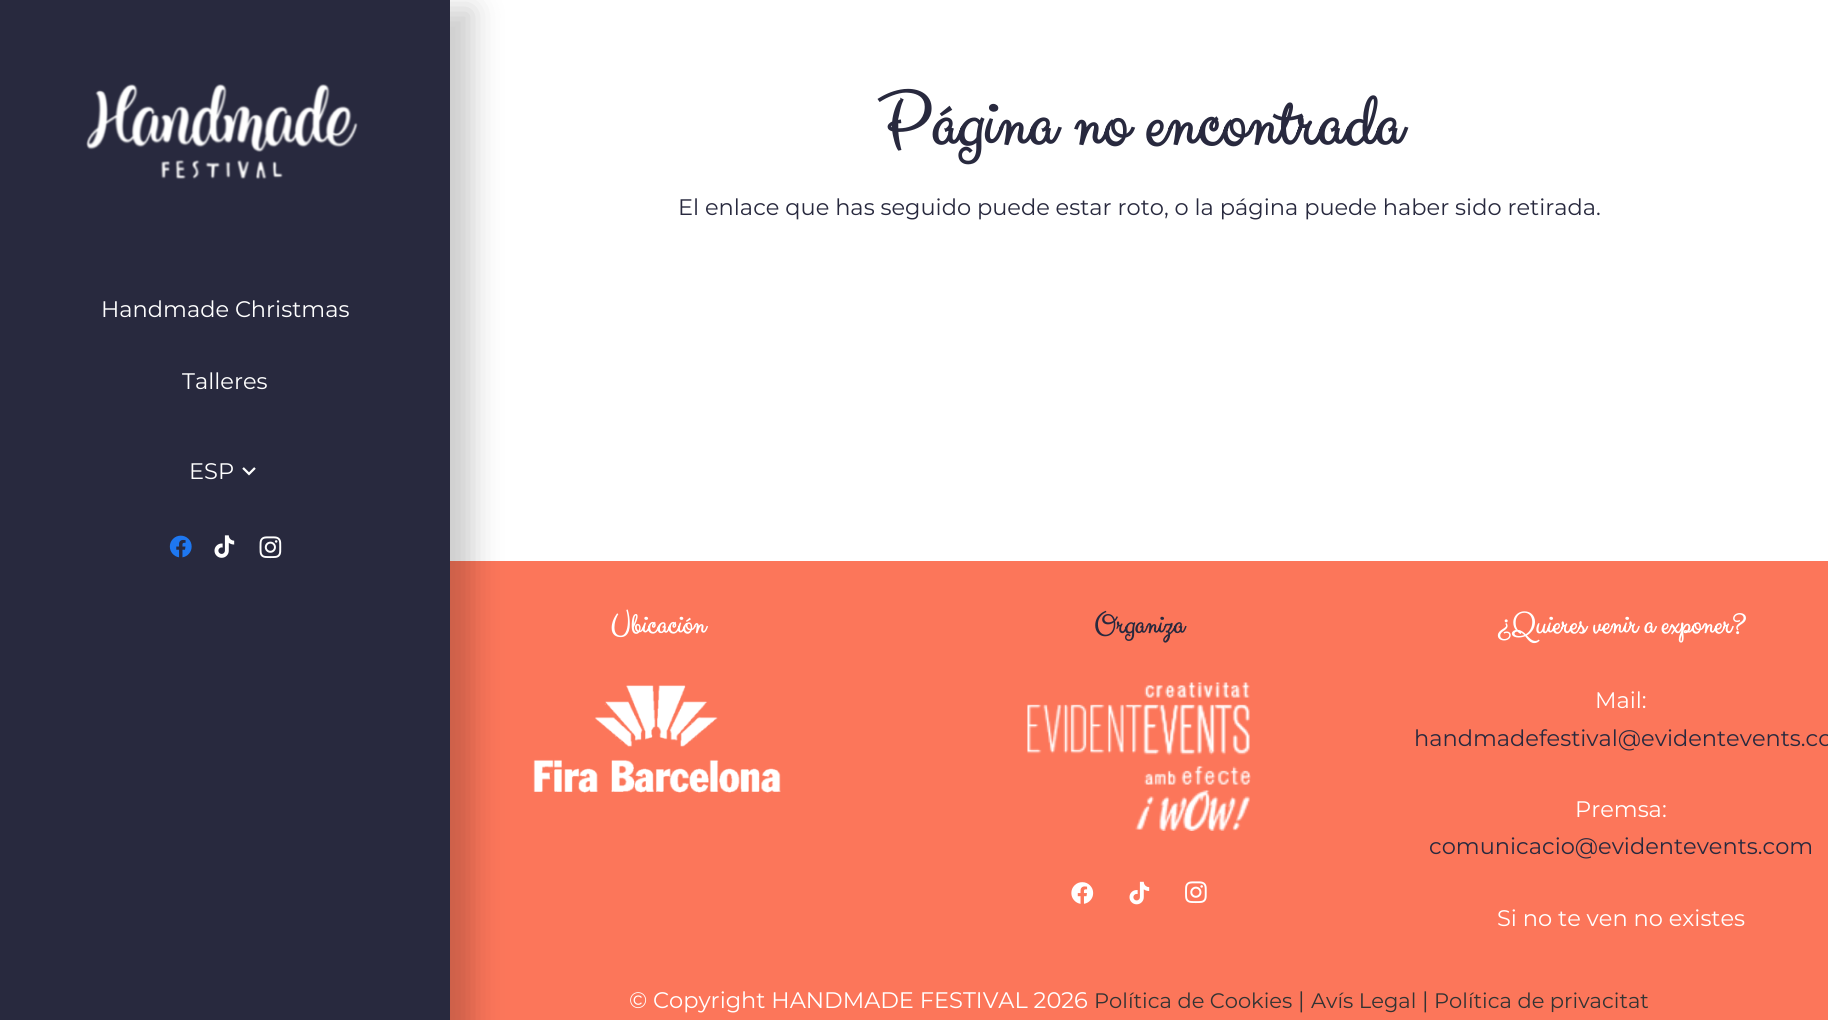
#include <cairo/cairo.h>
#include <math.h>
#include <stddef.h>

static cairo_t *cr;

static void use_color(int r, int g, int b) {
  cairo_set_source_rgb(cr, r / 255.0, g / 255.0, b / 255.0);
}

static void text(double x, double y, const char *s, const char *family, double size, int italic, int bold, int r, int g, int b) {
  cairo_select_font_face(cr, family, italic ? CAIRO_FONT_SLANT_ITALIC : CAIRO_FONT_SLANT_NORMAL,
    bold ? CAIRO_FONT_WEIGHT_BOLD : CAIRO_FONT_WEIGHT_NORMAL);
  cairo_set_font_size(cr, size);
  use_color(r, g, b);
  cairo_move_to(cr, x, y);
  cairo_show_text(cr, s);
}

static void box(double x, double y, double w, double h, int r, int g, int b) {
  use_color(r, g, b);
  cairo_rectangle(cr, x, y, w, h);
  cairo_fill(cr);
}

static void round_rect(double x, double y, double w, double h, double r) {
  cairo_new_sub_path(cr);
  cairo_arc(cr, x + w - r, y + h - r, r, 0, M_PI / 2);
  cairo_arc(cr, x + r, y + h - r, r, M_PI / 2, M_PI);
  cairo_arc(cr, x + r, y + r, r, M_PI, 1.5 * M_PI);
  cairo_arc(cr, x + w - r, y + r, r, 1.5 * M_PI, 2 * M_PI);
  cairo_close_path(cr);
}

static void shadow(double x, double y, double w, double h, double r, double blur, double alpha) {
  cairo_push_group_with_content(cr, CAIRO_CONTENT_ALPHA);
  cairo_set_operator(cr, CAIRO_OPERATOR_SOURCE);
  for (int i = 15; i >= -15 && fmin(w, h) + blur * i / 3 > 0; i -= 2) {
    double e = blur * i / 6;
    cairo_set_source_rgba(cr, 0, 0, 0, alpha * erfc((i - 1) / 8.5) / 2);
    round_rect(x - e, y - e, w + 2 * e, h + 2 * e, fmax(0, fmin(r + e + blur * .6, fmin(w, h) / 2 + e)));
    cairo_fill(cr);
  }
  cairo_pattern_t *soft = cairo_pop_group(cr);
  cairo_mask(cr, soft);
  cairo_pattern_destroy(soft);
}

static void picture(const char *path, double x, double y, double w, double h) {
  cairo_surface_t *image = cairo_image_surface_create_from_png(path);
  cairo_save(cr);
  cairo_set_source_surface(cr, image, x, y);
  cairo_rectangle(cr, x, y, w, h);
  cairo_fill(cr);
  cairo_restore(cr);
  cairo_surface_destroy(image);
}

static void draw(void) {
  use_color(255, 255, 255);
  cairo_paint(cr);
  box(450, 561, 1378, 459, 252, 118, 90);
  use_color(0, 0, 0);
  shadow(8, 9, 465, 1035, 0, 15, 0.2);
  box(0, 0, 450, 1020, 40, 41, 62);
  picture("img_01.png", 86, 84, 272, 96);
  picture("img_02.png", 242, 467, 14, 9);
  picture("img_03.png", 169, 535, 23, 23);
  picture("img_04.png", 214, 535, 21, 23);
  picture("img_05.png", 259, 536, 23, 23);
  picture("img_06.png", 533, 685, 248, 108);
  picture("img_07.png", 1027, 682, 224, 149);
  picture("img_08.png", 1071, 882, 23, 22);
  picture("img_09.png", 1129, 881, 21, 24);
  picture("img_10.png", 1185, 881, 22, 23);
  text(878, 147, "Página no encontrada", "Clicker Script", 75, 0, 1, 40, 41, 62);
  text(678, 215, "El enlace que has seguido puede estar roto, o la página puede haber sido retirada.", "Montserrat", 22.5, 0, 0, 40, 41, 62);
  text(101, 317, "Handmade Christmas", "Montserrat", 22.5, 0, 0, 255, 255, 255);
  text(182, 389, "Talleres", "Montserrat", 22.5, 0, 0, 255, 255, 255);
  text(189, 479, "ESP", "Montserrat", 22.5, 0, 0, 255, 255, 255);
  text(610, 634, "Ubicación", "Clicker Script", 30, 0, 1, 255, 255, 255);
  text(1094, 634, "Organiza", "Clicker Script", 30, 0, 1, 40, 41, 62);
  text(1497, 634, "¿Quieres venir a exponer?", "Clicker Script", 30, 0, 1, 255, 255, 255);
  text(1595, 708, "Mail:", "Montserrat", 22.5, 0, 0, 255, 255, 255);
  text(1414, 746, "handmadefestival@evidentevents.co", "Montserrat", 22.5, 0, 0, 40, 41, 62);
  text(1575, 817, "Premsa:", "Montserrat", 22.5, 0, 0, 255, 255, 255);
  text(1429, 854, "comunicacio@evidentevents.com", "Montserrat", 22.5, 0, 0, 40, 41, 62);
  text(1497, 926, "Si no te ven no existes", "Montserrat", 22.5, 0, 0, 255, 255, 255);
  text(629, 1008, "© Copyright HANDMADE FESTIVAL 2026", "Montserrat", 22.5, 0, 0, 255, 255, 255);
  text(1094, 1008, "Política de Cookies", "Montserrat", 21, 0, 0, 51, 51, 51);
  text(1298, 1008, "|", "Montserrat", 22.5, 0, 0, 51, 51, 51);
  text(1311, 1008, "Avís Legal", "Montserrat", 21, 0, 0, 51, 51, 51);
  text(1422, 1008, "|", "Montserrat", 22.5, 0, 0, 51, 51, 51);
  text(1434, 1008, "Política de privacitat", "Montserrat", 21, 0, 0, 51, 51, 51);
}

int main(void) {
  cairo_surface_t *surface = cairo_image_surface_create(CAIRO_FORMAT_RGB24, 1828, 1020);
  cr = cairo_create(surface);
  cairo_font_options_t *options = cairo_font_options_create();
  cairo_font_options_set_hint_metrics(options, CAIRO_HINT_METRICS_OFF);
  cairo_font_options_set_hint_style(options, CAIRO_HINT_STYLE_NONE);
  cairo_set_font_options(cr, options);
  cairo_set_miter_limit(cr, 4);
  draw();
  cairo_surface_write_to_png(surface, "out.png");
  cairo_font_options_destroy(options);
  cairo_destroy(cr);
  cairo_surface_destroy(surface);
  return 0;
}
